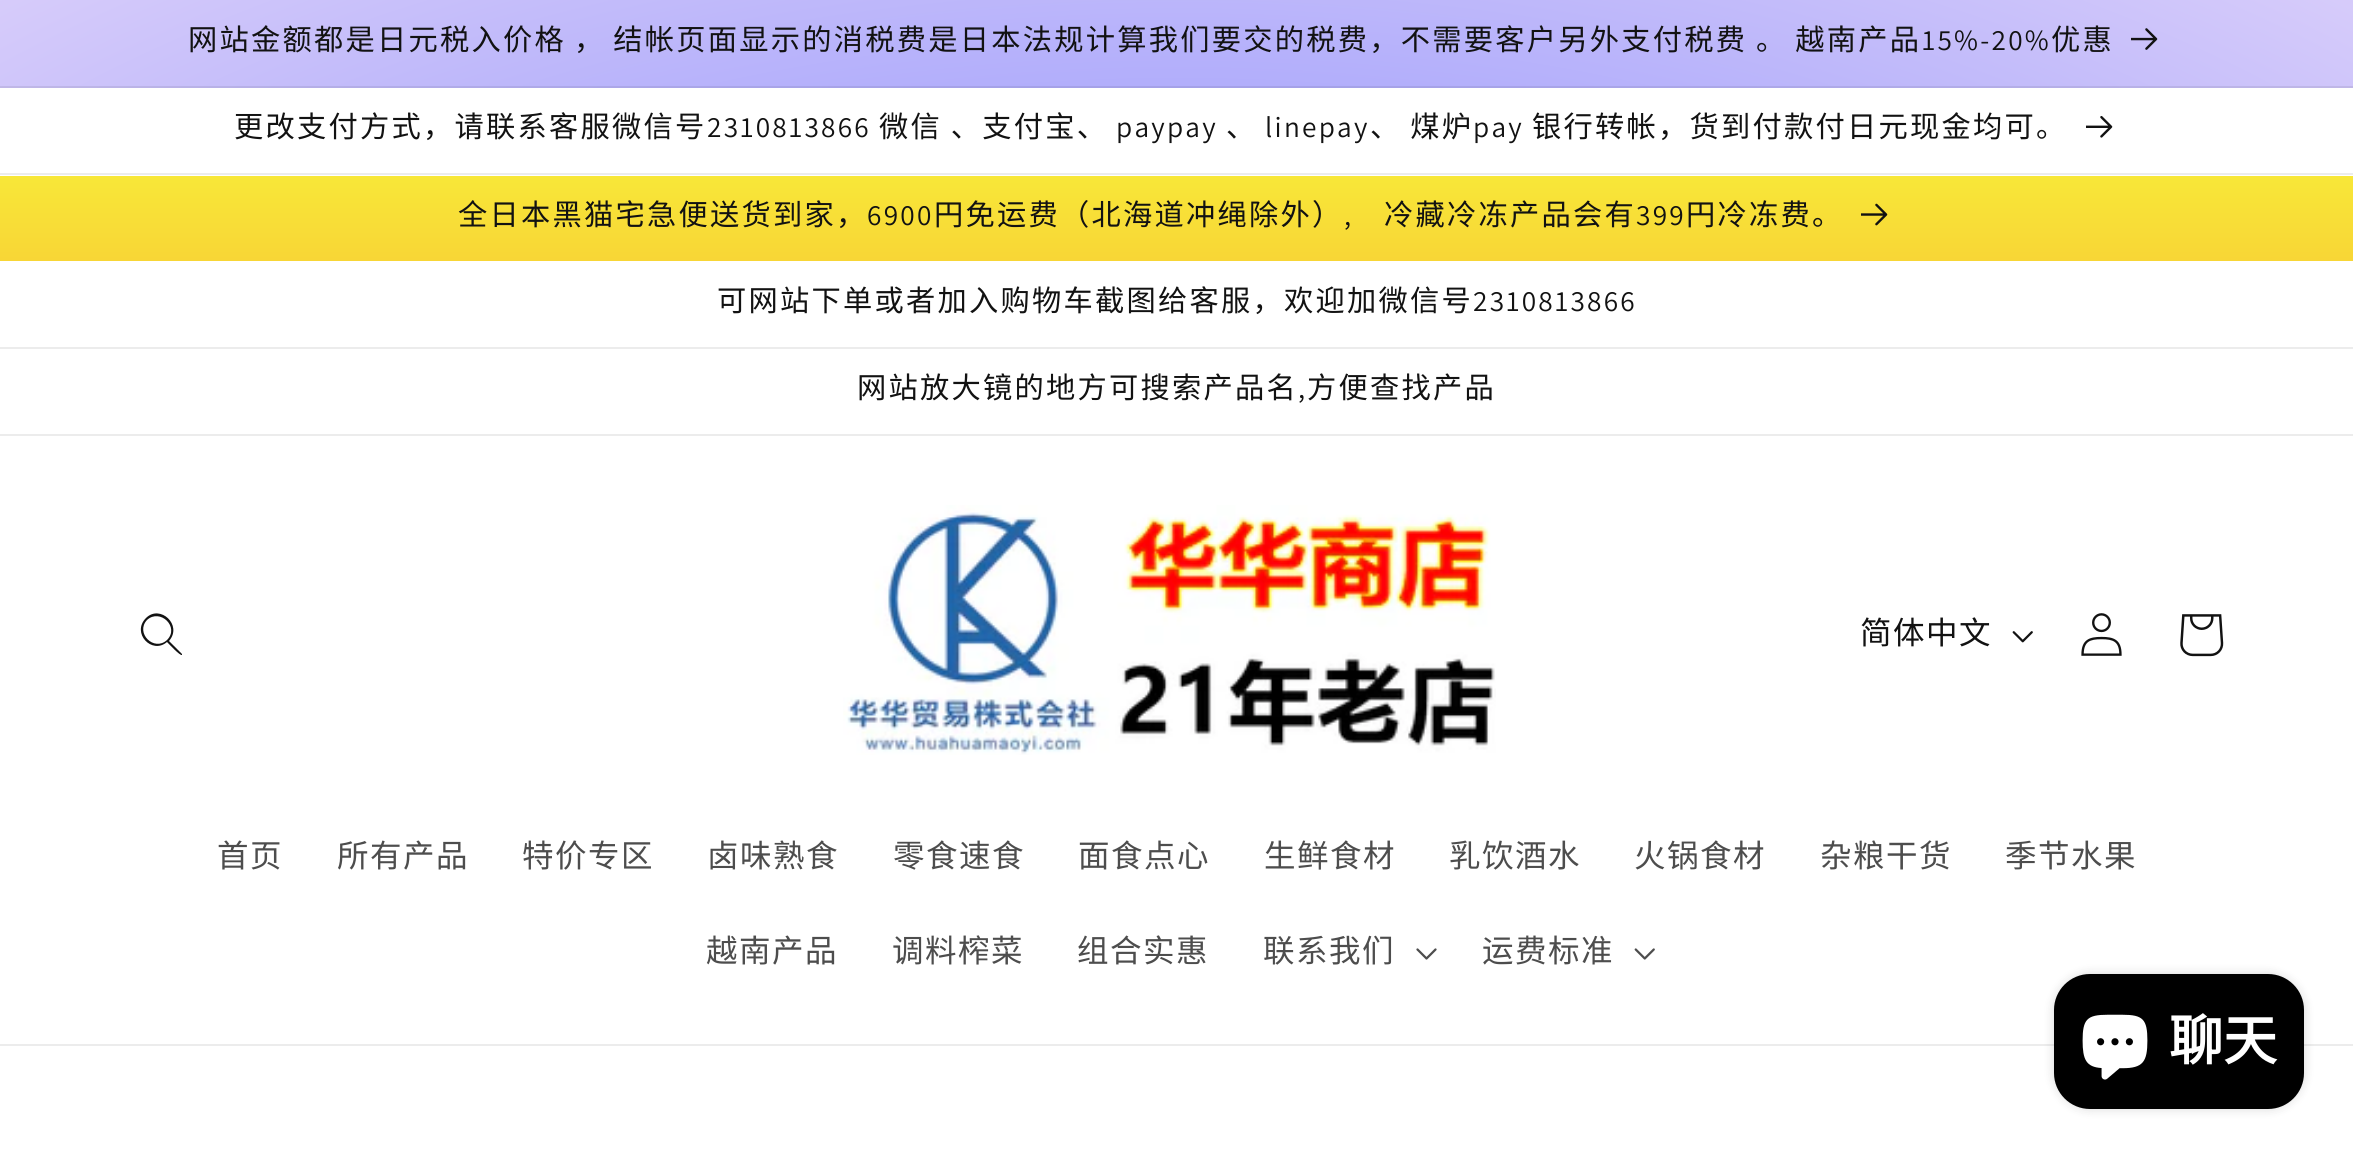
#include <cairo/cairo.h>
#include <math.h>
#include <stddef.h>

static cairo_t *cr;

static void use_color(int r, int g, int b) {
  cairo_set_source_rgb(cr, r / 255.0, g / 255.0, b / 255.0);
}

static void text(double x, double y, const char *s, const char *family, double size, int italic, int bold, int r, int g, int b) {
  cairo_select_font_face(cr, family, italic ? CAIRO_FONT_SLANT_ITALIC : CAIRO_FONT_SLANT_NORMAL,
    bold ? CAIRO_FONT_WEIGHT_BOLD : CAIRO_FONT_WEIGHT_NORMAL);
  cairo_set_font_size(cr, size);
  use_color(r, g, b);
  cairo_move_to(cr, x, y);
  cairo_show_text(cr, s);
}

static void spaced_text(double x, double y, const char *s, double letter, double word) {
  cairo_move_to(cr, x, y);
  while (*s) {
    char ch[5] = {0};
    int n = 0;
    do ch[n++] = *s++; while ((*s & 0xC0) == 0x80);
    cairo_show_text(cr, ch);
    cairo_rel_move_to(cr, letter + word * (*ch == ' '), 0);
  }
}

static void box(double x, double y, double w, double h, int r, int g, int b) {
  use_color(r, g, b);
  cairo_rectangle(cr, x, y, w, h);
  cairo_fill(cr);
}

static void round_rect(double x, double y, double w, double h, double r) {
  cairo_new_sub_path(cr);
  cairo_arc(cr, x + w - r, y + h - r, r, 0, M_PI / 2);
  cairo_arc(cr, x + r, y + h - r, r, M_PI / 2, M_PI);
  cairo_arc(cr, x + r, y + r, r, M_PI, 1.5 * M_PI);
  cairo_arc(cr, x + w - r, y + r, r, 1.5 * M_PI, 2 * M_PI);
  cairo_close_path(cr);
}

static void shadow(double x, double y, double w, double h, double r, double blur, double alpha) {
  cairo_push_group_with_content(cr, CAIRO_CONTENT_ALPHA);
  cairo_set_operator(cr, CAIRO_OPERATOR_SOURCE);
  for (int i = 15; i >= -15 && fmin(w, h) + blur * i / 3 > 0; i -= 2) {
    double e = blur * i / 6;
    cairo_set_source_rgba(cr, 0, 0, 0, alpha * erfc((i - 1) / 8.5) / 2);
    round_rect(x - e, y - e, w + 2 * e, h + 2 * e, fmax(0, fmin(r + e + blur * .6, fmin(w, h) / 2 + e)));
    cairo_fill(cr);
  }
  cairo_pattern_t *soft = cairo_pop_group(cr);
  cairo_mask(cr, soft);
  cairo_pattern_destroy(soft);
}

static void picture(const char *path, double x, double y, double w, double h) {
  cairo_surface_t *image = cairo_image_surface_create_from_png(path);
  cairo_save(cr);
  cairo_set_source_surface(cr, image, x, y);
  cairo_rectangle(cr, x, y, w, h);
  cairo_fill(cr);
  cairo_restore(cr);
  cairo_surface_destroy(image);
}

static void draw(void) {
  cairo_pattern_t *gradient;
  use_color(255, 255, 255);
  cairo_paint(cr);
  gradient = cairo_pattern_create_radial(0, 0, 0, 0, 0, 1);
  cairo_pattern_set_matrix(gradient, &(cairo_matrix_t){1.0 / 1664, 0, 0, 1.0 / 818, -1.0 * 1177 / 1664, -1.0 * 578 / 818});
  cairo_pattern_add_color_stop_rgba(gradient, 0, 0.475, 0.502, 0.988, 1);
  cairo_pattern_add_color_stop_rgba(gradient, 1, 0.843, 0.8, 0.98, 1);
  cairo_pattern_add_color_stop_rgba(gradient, 1, 0.969, 0.773, 0.8, 1);
  cairo_set_source(cr, gradient);
  cairo_pattern_destroy(gradient);
  cairo_rectangle(cr, 0, 0, 2353, 86);
  cairo_fill(cr);
  gradient = cairo_pattern_create_radial(0, 0, 0, 0, 0, 1);
  cairo_pattern_set_matrix(gradient, &(cairo_matrix_t){1.0 / 1664, 0, 0, 1.0 / 818, -1.0 * 1177 / 1664, -1.0 * 578 / 818});
  cairo_pattern_add_color_stop_rgba(gradient, 0, 0.443, 0.467, 0.914, 1);
  cairo_pattern_add_color_stop_rgba(gradient, 1, 0.78, 0.741, 0.906, 1);
  cairo_pattern_add_color_stop_rgba(gradient, 1, 0.898, 0.718, 0.741, 1);
  cairo_set_source(cr, gradient);
  cairo_pattern_destroy(gradient);
  cairo_rectangle(cr, 0, 86, 2353, 2);
  cairo_fill(cr);
  picture("img_01.png", 2131, 28, 27, 22);
  box(0, 173, 2353, 2, 236, 236, 236);
  picture("img_02.png", 2086, 116, 27, 22);
  gradient = cairo_pattern_create_linear(1177, 0, 1177, 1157);
  cairo_pattern_add_color_stop_rgba(gradient, 0, 1, 0.894, 0.192, 1);
  cairo_pattern_add_color_stop_rgba(gradient, 0.05, 0.973, 1, 0.231, 1);
  cairo_pattern_add_color_stop_rgba(gradient, 1, 0.976, 0.125, 0.125, 1);
  cairo_set_source(cr, gradient);
  cairo_pattern_destroy(gradient);
  cairo_rectangle(cr, 0, 176, 2353, 85);
  cairo_fill(cr);
  picture("img_03.png", 1861, 203, 27, 23);
  box(0, 347, 2353, 2, 236, 236, 236);
  box(0, 434, 2353, 2, 236, 236, 236);
  box(0, 1044, 2353, 2, 236, 236, 236);
  use_color(18, 18, 18);
  cairo_set_fill_rule(cr, CAIRO_FILL_RULE_EVEN_ODD);
  cairo_new_path(cr);
  cairo_move_to(cr, 167, 640);
  cairo_curve_to(cr, 154, 652, 135, 633, 147, 620);
  cairo_curve_to(cr, 160, 608, 180, 627, 167, 640);
  cairo_close_path(cr);
  cairo_move_to(cr, 167, 642);
  cairo_curve_to(cr, 152, 655, 131, 633, 146, 618);
  cairo_curve_to(cr, 160, 604, 183, 625, 169, 641);
  cairo_line_to(cr, 182, 654);
  cairo_line_to(cr, 182, 655);
  cairo_curve_to(cr, 180, 656, 169, 644, 167, 642);
  cairo_close_path(cr);
  cairo_fill(cr);
  picture("img_04.png", 843, 505, 653, 250);
  picture("img_05.png", 2012, 631, 21, 12);
  picture("img_06.png", 2081, 613, 41, 43);
  picture("img_07.png", 2180, 614, 44, 43);
  picture("img_08.png", 1416, 948, 21, 12);
  picture("img_09.png", 1634, 948, 21, 12);
  use_color(0, 0, 0);
  shadow(2054, 974, 250, 135, 36, 5.5, 0.15);
  use_color(0, 0, 0);
  round_rect(2054, 974, 250, 135, 36);
  cairo_fill(cr);
  picture("img_10.png", 2082, 1014, 66, 66);
  cairo_select_font_face(cr, "Noto Sans CJK SC", CAIRO_FONT_SLANT_NORMAL, CAIRO_FONT_WEIGHT_NORMAL);
  cairo_set_font_size(cr, 29.25);
  use_color(18, 18, 18);
  spaced_text(188, 50, "网站金额都是日元税入价格", 2.25, 0);
  spaced_text(574, 50, "， 结帐页面显示的消税费是日本法规计算我们要交的税费，不需要客户另外支付税费", 2.25, -1);
  spaced_text(1756, 50, "。 越南产品", 2.25, -1);
  cairo_select_font_face(cr, "Assistant", CAIRO_FONT_SLANT_NORMAL, CAIRO_FONT_WEIGHT_NORMAL);
  spaced_text(1922, 50, "15%-20%", 2.25, 0);
  cairo_select_font_face(cr, "Noto Sans CJK SC", CAIRO_FONT_SLANT_NORMAL, CAIRO_FONT_WEIGHT_NORMAL);
  spaced_text(2051, 50, "优惠", 2.25, 0);
  spaced_text(234, 137, "更改支付方式，请联系客服微信号", 2.25, 0);
  cairo_select_font_face(cr, "Assistant", CAIRO_FONT_SLANT_NORMAL, CAIRO_FONT_WEIGHT_NORMAL);
  spaced_text(707, 137, "2310813866", 2.25, 0);
  cairo_select_font_face(cr, "Noto Sans CJK SC", CAIRO_FONT_SLANT_NORMAL, CAIRO_FONT_WEIGHT_NORMAL);
  spaced_text(879, 137, "微信 、支付宝、", 2.25, 0);
  cairo_select_font_face(cr, "Assistant", CAIRO_FONT_SLANT_NORMAL, CAIRO_FONT_WEIGHT_NORMAL);
  spaced_text(1116, 137, "paypay", 2.25, 0);
  cairo_select_font_face(cr, "Noto Sans CJK SC", CAIRO_FONT_SLANT_NORMAL, CAIRO_FONT_WEIGHT_NORMAL);
  spaced_text(1226, 137, "、", 2.25, 0);
  cairo_select_font_face(cr, "Assistant", CAIRO_FONT_SLANT_NORMAL, CAIRO_FONT_WEIGHT_NORMAL);
  spaced_text(1265, 137, "linepay", 2.25, 0);
  cairo_select_font_face(cr, "Noto Sans CJK SC", CAIRO_FONT_SLANT_NORMAL, CAIRO_FONT_WEIGHT_NORMAL);
  spaced_text(1370, 137, "、 煤炉", 2.25, 0);
  cairo_select_font_face(cr, "Assistant", CAIRO_FONT_SLANT_NORMAL, CAIRO_FONT_WEIGHT_NORMAL);
  spaced_text(1473, 137, "pay", 2.25, 0);
  cairo_select_font_face(cr, "Noto Sans CJK SC", CAIRO_FONT_SLANT_NORMAL, CAIRO_FONT_WEIGHT_NORMAL);
  spaced_text(1532, 137, "银行转帐，货到付款付日元现金均可。", 2.25, 0);
  spaced_text(458, 225, "全日本黑猫宅急便送货到家，", 2.25, 0);
  cairo_select_font_face(cr, "Assistant", CAIRO_FONT_SLANT_NORMAL, CAIRO_FONT_WEIGHT_NORMAL);
  spaced_text(867, 225, "6900", 2.25, 0);
  cairo_select_font_face(cr, "Noto Sans CJK SC", CAIRO_FONT_SLANT_NORMAL, CAIRO_FONT_WEIGHT_NORMAL);
  spaced_text(934, 225, "円免运费（北海道冲绳除外）", 2.25, 0);
  cairo_select_font_face(cr, "Assistant", CAIRO_FONT_SLANT_NORMAL, CAIRO_FONT_WEIGHT_NORMAL);
  spaced_text(1344, 225, ",", 2.25, 0);
  cairo_select_font_face(cr, "Noto Sans CJK SC", CAIRO_FONT_SLANT_NORMAL, CAIRO_FONT_WEIGHT_NORMAL);
  spaced_text(1384, 225, "冷藏冷冻产品会有", 2.25, 0);
  cairo_select_font_face(cr, "Assistant", CAIRO_FONT_SLANT_NORMAL, CAIRO_FONT_WEIGHT_NORMAL);
  spaced_text(1636, 225, "399", 2.25, 0);
  cairo_select_font_face(cr, "Noto Sans CJK SC", CAIRO_FONT_SLANT_NORMAL, CAIRO_FONT_WEIGHT_NORMAL);
  spaced_text(1686, 225, "円冷冻费。", 2.25, 0);
  spaced_text(717, 311, "可网站下单或者加入购物车截图给客服，欢迎加微信号", 2.25, 0);
  cairo_select_font_face(cr, "Assistant", CAIRO_FONT_SLANT_NORMAL, CAIRO_FONT_WEIGHT_NORMAL);
  spaced_text(1473, 311, "2310813866", 2.25, 0);
  cairo_select_font_face(cr, "Noto Sans CJK SC", CAIRO_FONT_SLANT_NORMAL, CAIRO_FONT_WEIGHT_NORMAL);
  spaced_text(857, 398, "网站放大镜的地方可搜索产品名", 2.25, 0);
  cairo_select_font_face(cr, "Assistant", CAIRO_FONT_SLANT_NORMAL, CAIRO_FONT_WEIGHT_NORMAL);
  spaced_text(1298, 398, ",", 2.25, 0);
  cairo_select_font_face(cr, "Noto Sans CJK SC", CAIRO_FONT_SLANT_NORMAL, CAIRO_FONT_WEIGHT_NORMAL);
  spaced_text(1307, 398, "方便查找产品", 2.25, 0);
  cairo_set_font_size(cr, 31.5);
  spaced_text(1860, 644, "简体中文", 1.5, 0);
  use_color(77, 77, 77);
  spaced_text(217, 867, "首页", 1.5, 0);
  spaced_text(337, 867, "所有产品", 1.5, 0);
  spaced_text(522, 867, "特价专区", 1.5, 0);
  spaced_text(707, 867, "卤味熟食", 1.5, 0);
  spaced_text(893, 867, "零食速食", 1.5, 0);
  spaced_text(1078, 867, "面食点心", 1.5, 0);
  spaced_text(1264, 867, "生鲜食材", 1.5, 0);
  spaced_text(1449, 867, "乳饮酒水", 1.5, 0);
  spaced_text(1634, 867, "火锅食材", 1.5, 0);
  spaced_text(1820, 867, "杂粮干货", 1.5, 0);
  spaced_text(2005, 867, "季节水果", 1.5, 0);
  spaced_text(706, 962, "越南产品", 1.5, 0);
  spaced_text(892, 962, "调料榨菜", 1.5, 0);
  spaced_text(1077, 962, "组合实惠", 1.5, 0);
  spaced_text(1263, 962, "联系我们", 1.5, 0);
  spaced_text(1482, 962, "运费标准", 1.5, 0);
  text(2169, 1060, "聊天", "Noto Sans CJK SC", 54, 0, 1, 255, 255, 255);
}

int main(void) {
  cairo_surface_t *surface = cairo_image_surface_create(CAIRO_FORMAT_RGB24, 2353, 1155);
  cr = cairo_create(surface);
  cairo_font_options_t *options = cairo_font_options_create();
  cairo_font_options_set_hint_metrics(options, CAIRO_HINT_METRICS_OFF);
  cairo_font_options_set_hint_style(options, CAIRO_HINT_STYLE_NONE);
  cairo_set_font_options(cr, options);
  cairo_set_miter_limit(cr, 4);
  draw();
  cairo_surface_write_to_png(surface, "out.png");
  cairo_font_options_destroy(options);
  cairo_destroy(cr);
  cairo_surface_destroy(surface);
  return 0;
}
